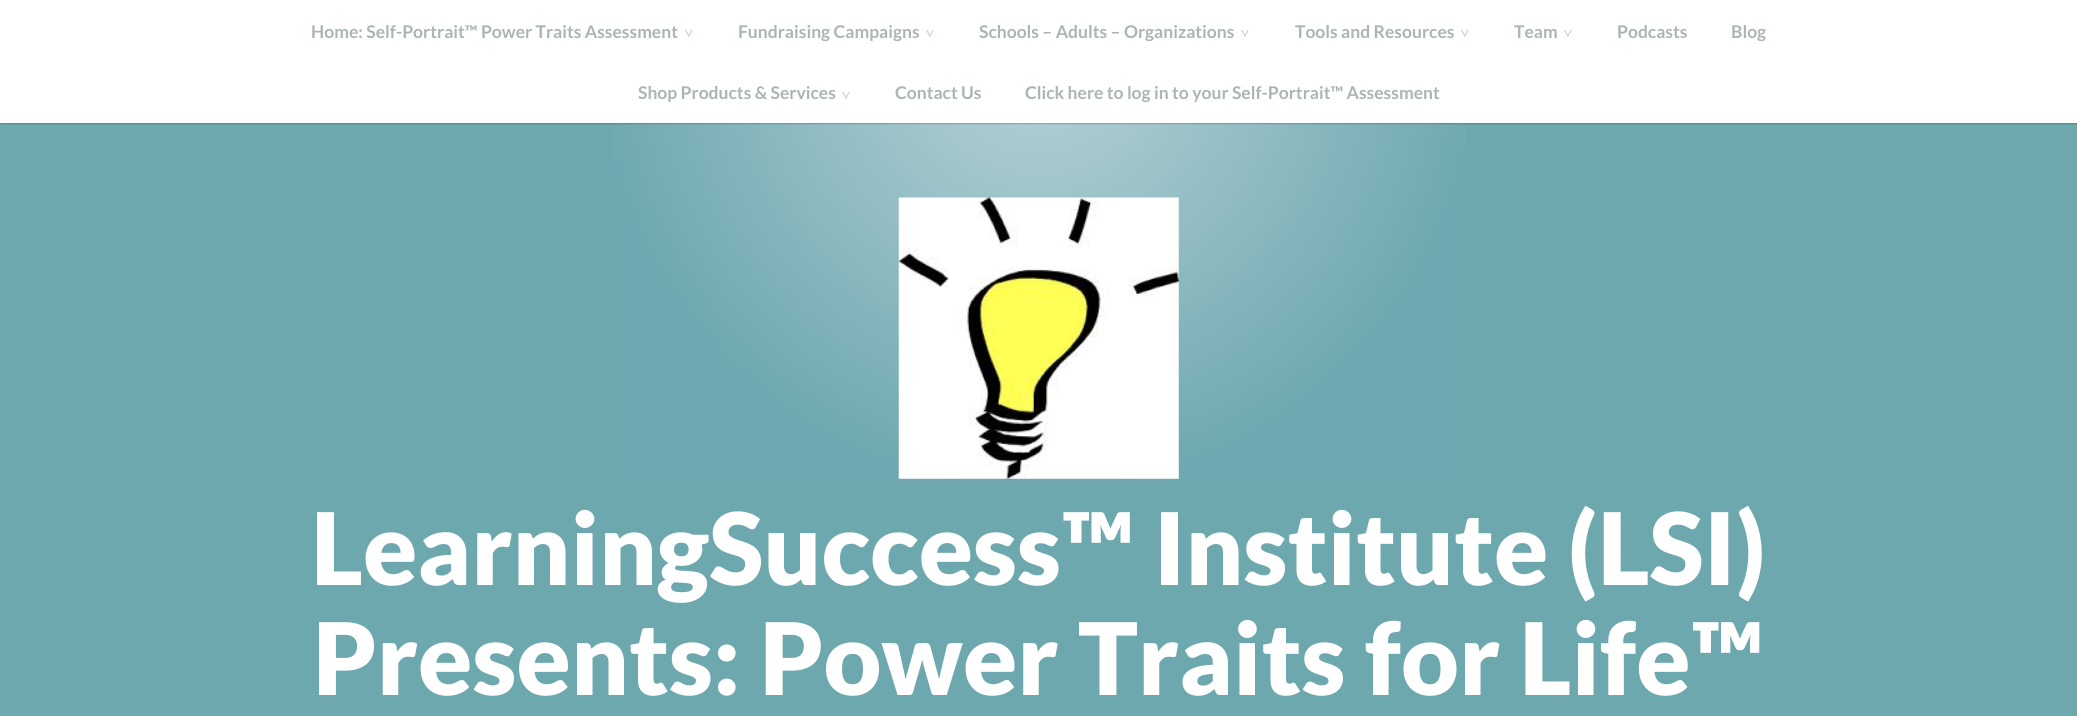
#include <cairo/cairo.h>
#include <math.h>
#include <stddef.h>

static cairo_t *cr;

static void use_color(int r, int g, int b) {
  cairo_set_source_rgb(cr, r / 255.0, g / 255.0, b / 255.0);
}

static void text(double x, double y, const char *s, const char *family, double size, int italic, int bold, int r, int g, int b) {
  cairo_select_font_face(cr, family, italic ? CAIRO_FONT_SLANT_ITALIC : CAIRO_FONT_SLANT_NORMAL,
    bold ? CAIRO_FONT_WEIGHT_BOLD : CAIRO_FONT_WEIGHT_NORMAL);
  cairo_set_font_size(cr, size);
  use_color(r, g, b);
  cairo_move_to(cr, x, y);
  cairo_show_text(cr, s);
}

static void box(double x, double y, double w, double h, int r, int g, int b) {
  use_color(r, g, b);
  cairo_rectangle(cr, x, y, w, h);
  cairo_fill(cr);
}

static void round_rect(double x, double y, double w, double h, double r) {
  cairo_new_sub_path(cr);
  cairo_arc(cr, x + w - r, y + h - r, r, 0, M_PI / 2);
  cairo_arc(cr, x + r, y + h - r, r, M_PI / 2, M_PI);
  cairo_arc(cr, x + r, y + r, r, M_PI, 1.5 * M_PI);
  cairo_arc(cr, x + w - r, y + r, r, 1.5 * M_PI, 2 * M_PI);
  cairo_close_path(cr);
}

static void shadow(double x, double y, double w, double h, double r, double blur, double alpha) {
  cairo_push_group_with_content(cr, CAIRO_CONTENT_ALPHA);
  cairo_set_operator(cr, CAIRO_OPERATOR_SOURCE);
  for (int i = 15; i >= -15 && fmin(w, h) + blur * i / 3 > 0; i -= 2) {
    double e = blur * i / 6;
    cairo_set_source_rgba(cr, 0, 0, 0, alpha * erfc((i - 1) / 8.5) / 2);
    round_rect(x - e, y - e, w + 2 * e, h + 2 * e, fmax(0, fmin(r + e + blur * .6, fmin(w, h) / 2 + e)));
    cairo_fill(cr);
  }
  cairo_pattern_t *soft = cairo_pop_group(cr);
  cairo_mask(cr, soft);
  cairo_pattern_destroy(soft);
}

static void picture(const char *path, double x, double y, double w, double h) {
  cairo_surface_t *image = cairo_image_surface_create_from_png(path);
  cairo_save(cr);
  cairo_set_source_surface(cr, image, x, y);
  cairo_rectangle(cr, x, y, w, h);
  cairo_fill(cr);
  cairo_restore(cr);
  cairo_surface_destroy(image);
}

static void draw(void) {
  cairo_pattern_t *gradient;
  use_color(110, 168, 175);
  cairo_paint(cr);
  gradient = cairo_pattern_create_radial(1039, 50, 0, 1039, 50, 884);
  cairo_pattern_add_color_stop_rgba(gradient, 0, 0.718, 0.827, 0.843, 1);
  cairo_pattern_add_color_stop_rgba(gradient, 0.5, 0.435, 0.659, 0.69, 1);
  cairo_pattern_add_color_stop_rgba(gradient, 1, 0.435, 0.659, 0.69, 1);
  cairo_set_source(cr, gradient);
  cairo_pattern_destroy(gradient);
  cairo_rectangle(cr, 612, 123, 854, 360);
  cairo_fill(cr);
  use_color(0, 0, 0);
  shadow(1, 1, 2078, 123, 0, 0.5, 0.2);
  box(0, 0, 2077, 123, 255, 255, 255);
  picture("img_01.png", 898, 197, 281, 282);
  text(311, 38, "Home: Self-Portrait™ Power Traits Assessment", "Lato", 17.5, 0, 1, 171, 181, 182);
  cairo_save(cr);
  cairo_translate(cr, 683, 28);
  cairo_rotate(cr, 90 * M_PI / 180);
  text(0, 0, ">", "Lato", 17.5, 0, 0, 205, 211, 211);
  cairo_restore(cr);
  text(738, 38, "Fundraising Campaigns", "Lato", 17.5, 0, 1, 171, 181, 182);
  cairo_save(cr);
  cairo_translate(cr, 924, 28);
  cairo_rotate(cr, 90 * M_PI / 180);
  text(0, 0, ">", "Lato", 17.5, 0, 0, 205, 211, 211);
  cairo_restore(cr);
  text(979, 38, "Schools – Adults – Organizations", "Lato", 17.5, 0, 1, 171, 181, 182);
  cairo_save(cr);
  cairo_translate(cr, 1239, 28);
  cairo_rotate(cr, 90 * M_PI / 180);
  text(0, 0, ">", "Lato", 17.5, 0, 0, 205, 211, 211);
  cairo_restore(cr);
  text(1295, 38, "Tools and Resources", "Lato", 17.5, 0, 1, 171, 181, 182);
  cairo_save(cr);
  cairo_translate(cr, 1459, 28);
  cairo_rotate(cr, 90 * M_PI / 180);
  text(0, 0, ">", "Lato", 17.5, 0, 0, 205, 211, 211);
  cairo_restore(cr);
  text(1514, 38, "Team", "Lato", 17.5, 0, 1, 171, 181, 182);
  cairo_save(cr);
  cairo_translate(cr, 1562, 28);
  cairo_rotate(cr, 90 * M_PI / 180);
  text(0, 0, ">", "Lato", 17.5, 0, 0, 205, 211, 211);
  cairo_restore(cr);
  text(1617, 38, "Podcasts", "Lato", 17.5, 0, 1, 171, 181, 182);
  text(1731, 38, "Blog", "Lato", 17.5, 0, 1, 171, 181, 182);
  text(638, 99, "Shop Products & Services", "Lato", 17.5, 0, 1, 171, 181, 182);
  cairo_save(cr);
  cairo_translate(cr, 840, 90);
  cairo_rotate(cr, 90 * M_PI / 180);
  text(0, 0, ">", "Lato", 17.5, 0, 0, 205, 211, 211);
  cairo_restore(cr);
  text(895, 99, "Contact Us", "Lato", 17.5, 0, 1, 171, 181, 182);
  text(1025, 99, "Click here to log in to your Self-Portrait™ Assessment", "Lato", 17.5, 0, 1, 171, 181, 182);
  text(311, 585, "LearningSuccess™ Institute (LSI)", "Lato Black", 100, 0, 0, 255, 255, 255);
  text(313, 695, "Presents: Power Traits for Life™", "Lato Black", 100, 0, 0, 255, 255, 255);
}

int main(void) {
  cairo_surface_t *surface = cairo_image_surface_create(CAIRO_FORMAT_RGB24, 2077, 716);
  cr = cairo_create(surface);
  cairo_font_options_t *options = cairo_font_options_create();
  cairo_font_options_set_hint_metrics(options, CAIRO_HINT_METRICS_OFF);
  cairo_font_options_set_hint_style(options, CAIRO_HINT_STYLE_NONE);
  cairo_set_font_options(cr, options);
  cairo_set_miter_limit(cr, 4);
  draw();
  cairo_surface_write_to_png(surface, "out.png");
  cairo_font_options_destroy(options);
  cairo_destroy(cr);
  cairo_surface_destroy(surface);
  return 0;
}
